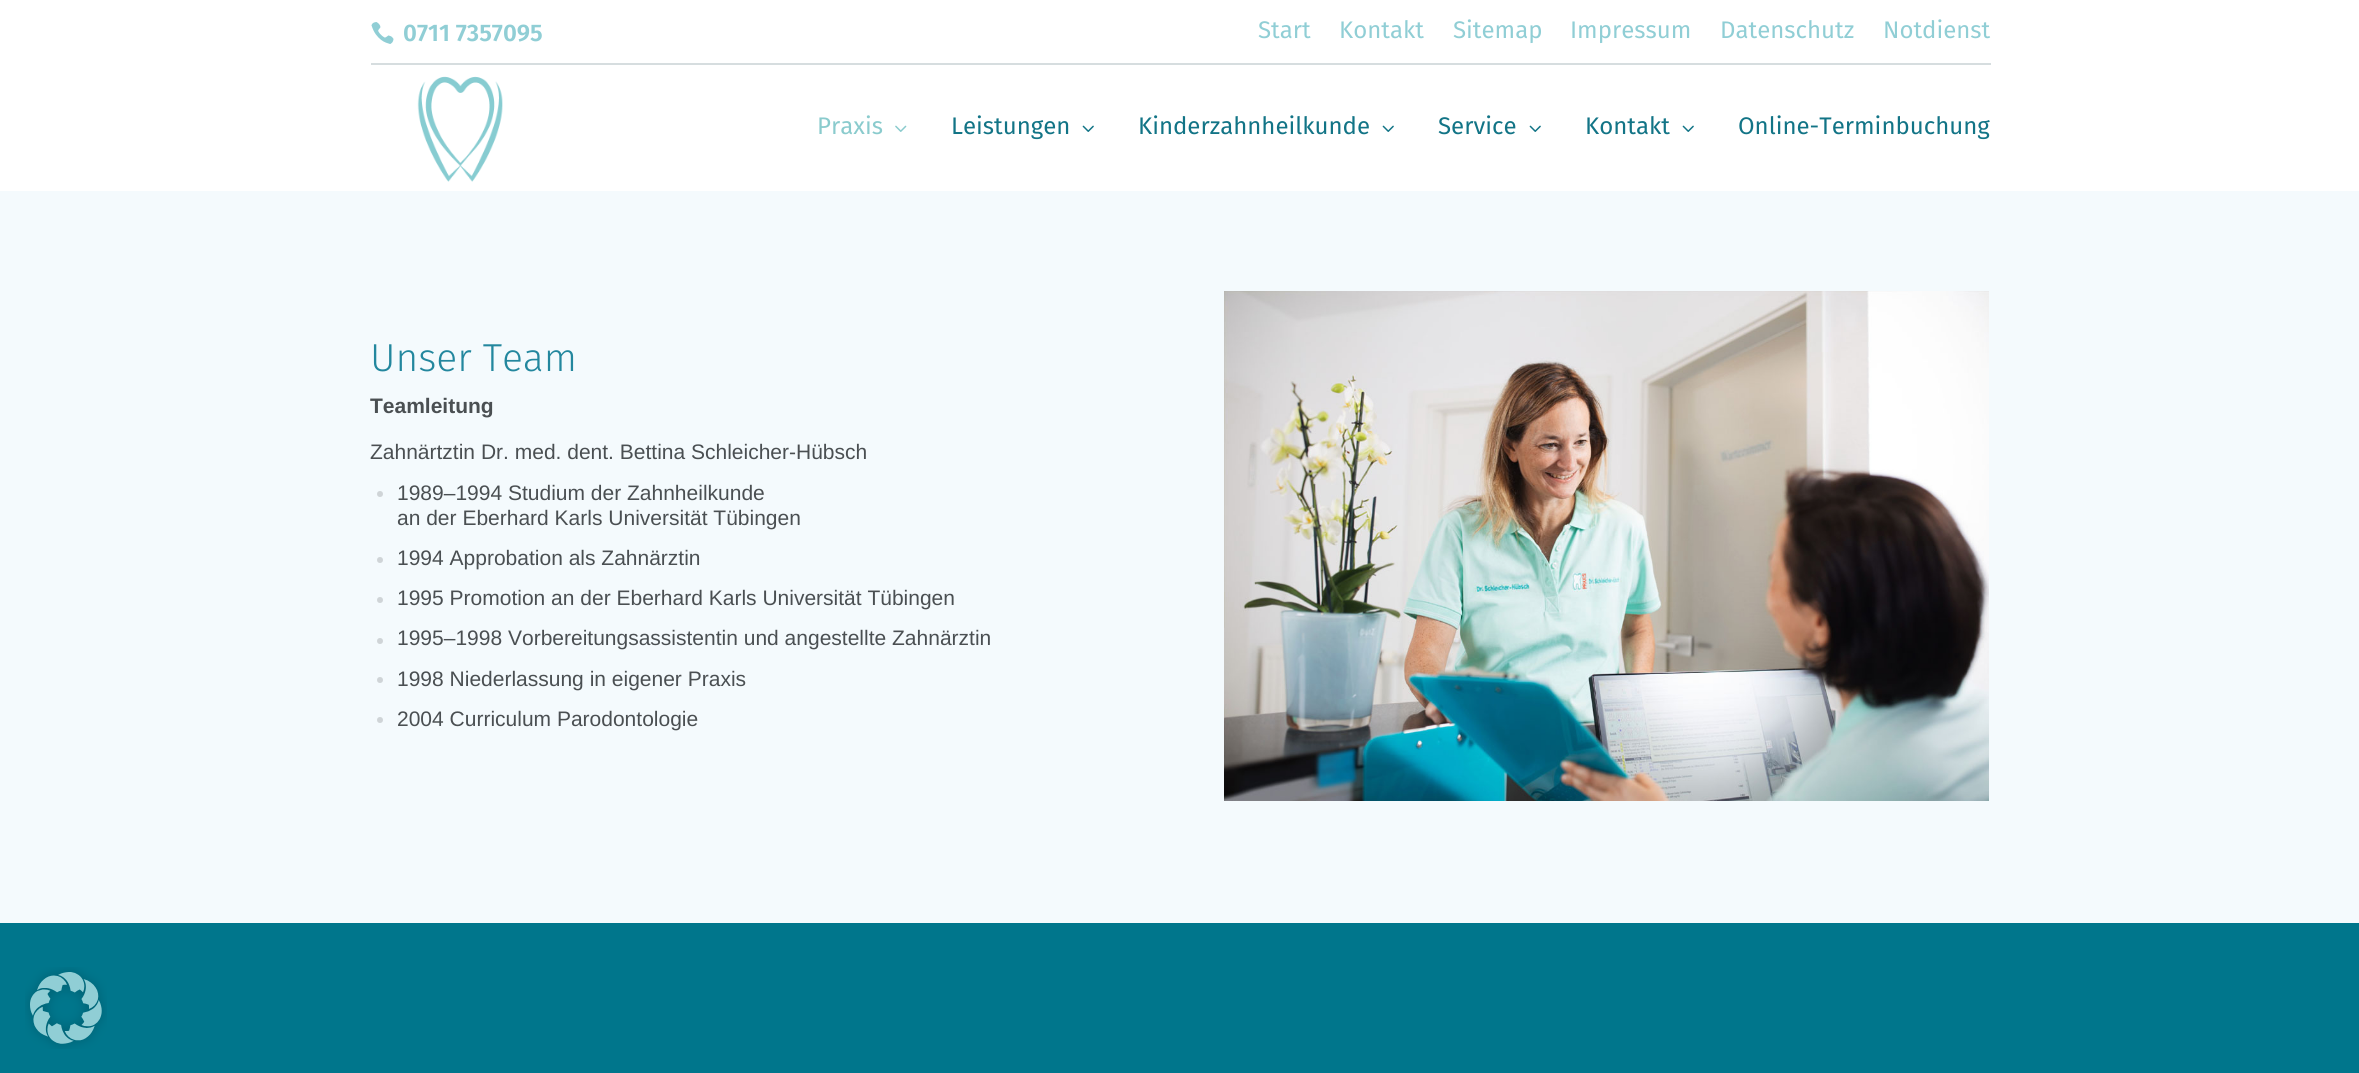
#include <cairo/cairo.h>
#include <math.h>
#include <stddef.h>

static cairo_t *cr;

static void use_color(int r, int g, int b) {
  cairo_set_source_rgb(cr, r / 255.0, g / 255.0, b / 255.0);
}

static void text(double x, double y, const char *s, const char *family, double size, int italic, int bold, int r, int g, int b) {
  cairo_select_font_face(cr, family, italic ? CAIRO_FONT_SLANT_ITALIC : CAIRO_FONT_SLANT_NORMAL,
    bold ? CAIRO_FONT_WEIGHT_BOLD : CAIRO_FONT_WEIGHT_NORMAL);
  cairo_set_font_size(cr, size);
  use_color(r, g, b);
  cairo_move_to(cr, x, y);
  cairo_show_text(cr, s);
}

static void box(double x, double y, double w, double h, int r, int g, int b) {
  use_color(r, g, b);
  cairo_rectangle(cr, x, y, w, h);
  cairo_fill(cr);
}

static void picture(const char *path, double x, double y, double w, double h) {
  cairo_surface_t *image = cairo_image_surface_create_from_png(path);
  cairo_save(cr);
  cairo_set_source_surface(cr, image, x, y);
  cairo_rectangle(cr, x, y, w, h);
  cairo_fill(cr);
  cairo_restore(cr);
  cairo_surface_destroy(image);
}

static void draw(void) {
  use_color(255, 255, 255);
  cairo_paint(cr);
  box(371, 63, 1620, 2, 214, 221, 223);
  picture("img_01.png", 371, 22, 23, 22);
  picture("img_02.png", 417, 76, 86, 106);
  picture("img_03.png", 895, 125, 12, 7);
  picture("img_04.png", 1082, 125, 12, 7);
  picture("img_04.png", 1382, 125, 12, 7);
  picture("img_04.png", 1529, 125, 12, 7);
  picture("img_04.png", 1682, 125, 12, 7);
  box(0, 191, 2359, 732, 244, 250, 253);
  use_color(207, 212, 215);
  cairo_arc(cr, 380, 494, 3, 0, 2 * M_PI);
  cairo_fill(cr);
  cairo_arc(cr, 380, 560, 3, 0, 2 * M_PI);
  cairo_fill(cr);
  cairo_arc(cr, 380, 600, 3, 0, 2 * M_PI);
  cairo_fill(cr);
  cairo_arc(cr, 380, 641, 3, 0, 2 * M_PI);
  cairo_fill(cr);
  cairo_arc(cr, 380, 680, 3, 0, 2 * M_PI);
  cairo_fill(cr);
  cairo_arc(cr, 380, 720, 3, 0, 2 * M_PI);
  cairo_fill(cr);
  picture("img_05.png", 1224, 291, 765, 510);
  box(0, 923, 2359, 150, 0, 118, 140);
  picture("img_06.png", 25, 967, 82, 82);
  text(403, 41, "0711 7357095", "Fira Sans SemiBold", 24, 0, 0, 144, 206, 213);
  text(1258, 38, "Start", "Fira Sans", 24, 0, 0, 144, 206, 213);
  text(1339, 38, "Kontakt", "Fira Sans", 24, 0, 0, 144, 206, 213);
  text(1453, 38, "Sitemap", "Fira Sans", 24, 0, 0, 144, 206, 213);
  text(1570, 38, "Impressum", "Fira Sans", 24, 0, 0, 144, 206, 213);
  text(1720, 38, "Datenschutz", "Fira Sans", 24, 0, 0, 144, 206, 213);
  text(1883, 38, "Notdienst", "Fira Sans", 24, 0, 0, 144, 206, 213);
  text(817, 134, "Praxis", "Fira Sans", 24, 0, 0, 138, 203, 205);
  text(951, 134, "Leistungen", "Fira Sans", 24, 0, 0, 18, 116, 134);
  text(1138, 134, "Kinderzahnheilkunde", "Fira Sans", 24, 0, 0, 18, 116, 134);
  text(1438, 134, "Service", "Fira Sans", 24, 0, 0, 18, 116, 134);
  text(1585, 134, "Kontakt", "Fira Sans", 24, 0, 0, 18, 116, 134);
  text(1738, 134, "Online-Terminbuchung", "Fira Sans", 24, 0, 0, 18, 116, 134);
  text(370, 371, "Unser Team", "Fira Sans Light", 39, 0, 0, 35, 135, 158);
  text(370, 413, "Teamleitung", "Arimo", 21, 0, 1, 74, 79, 82);
  text(370, 459, "Zahnärtztin Dr. med. dent. Bettina Schleicher-Hübsch", "Arimo", 21, 0, 0, 74, 79, 82);
  text(397, 500, "1989–1994 Studium der Zahnheilkunde", "Arimo", 21, 0, 0, 74, 79, 82);
  text(397, 525, "an der Eberhard Karls Universität Tübingen", "Arimo", 21, 0, 0, 74, 79, 82);
  text(397, 565, "1994 Approbation als Zahnärztin", "Arimo", 21, 0, 0, 74, 79, 82);
  text(397, 605, "1995 Promotion an der Eberhard Karls Universität Tübingen", "Arimo", 21, 0, 0, 74, 79, 82);
  text(397, 645, "1995–1998 Vorbereitungsassistentin und angestellte Zahnärztin", "Arimo", 21, 0, 0, 74, 79, 82);
  text(397, 686, "1998 Niederlassung in eigener Praxis", "Arimo", 21, 0, 0, 74, 79, 82);
  text(397, 726, "2004 Curriculum Parodontologie", "Arimo", 21, 0, 0, 74, 79, 82);
}

int main(void) {
  cairo_surface_t *surface = cairo_image_surface_create(CAIRO_FORMAT_RGB24, 2359, 1073);
  cr = cairo_create(surface);
  cairo_font_options_t *options = cairo_font_options_create();
  cairo_font_options_set_hint_metrics(options, CAIRO_HINT_METRICS_OFF);
  cairo_font_options_set_hint_style(options, CAIRO_HINT_STYLE_NONE);
  cairo_set_font_options(cr, options);
  cairo_set_miter_limit(cr, 4);
  draw();
  cairo_surface_write_to_png(surface, "out.png");
  cairo_font_options_destroy(options);
  cairo_destroy(cr);
  cairo_surface_destroy(surface);
  return 0;
}
